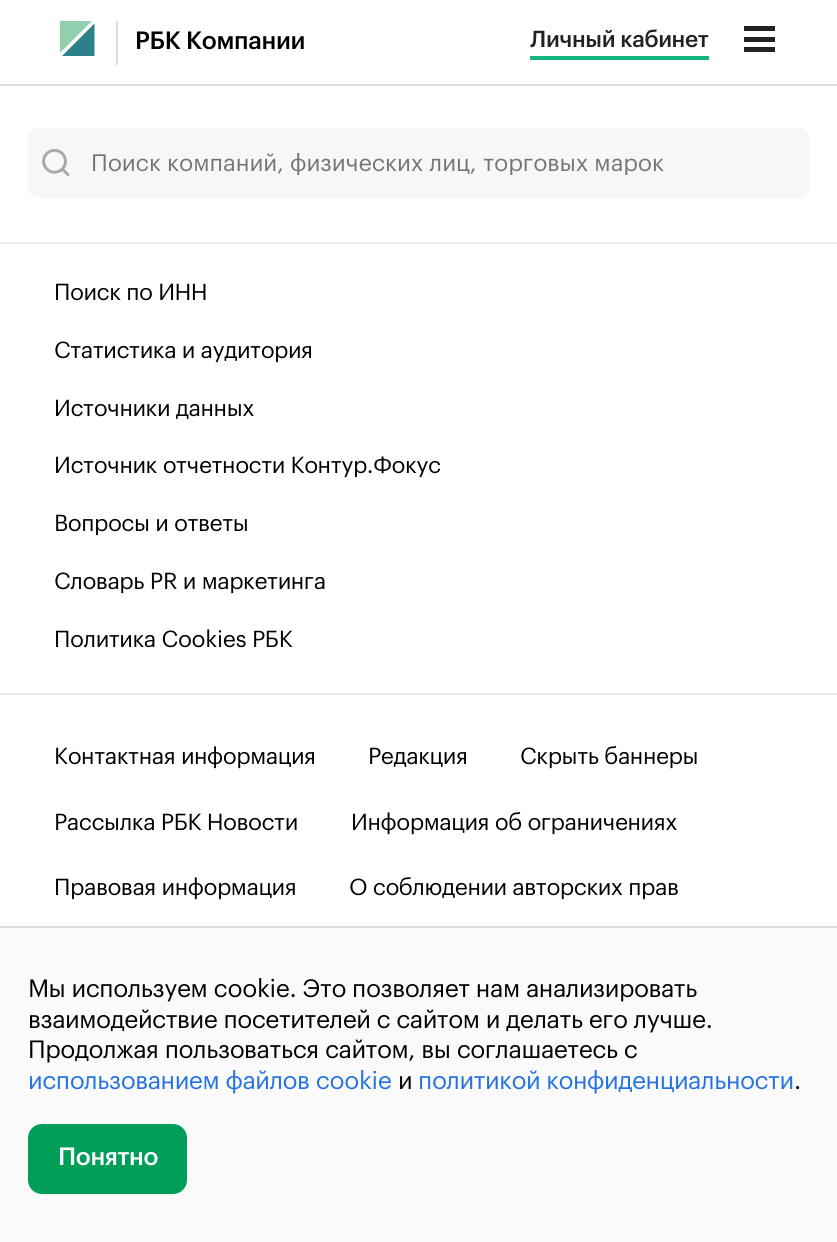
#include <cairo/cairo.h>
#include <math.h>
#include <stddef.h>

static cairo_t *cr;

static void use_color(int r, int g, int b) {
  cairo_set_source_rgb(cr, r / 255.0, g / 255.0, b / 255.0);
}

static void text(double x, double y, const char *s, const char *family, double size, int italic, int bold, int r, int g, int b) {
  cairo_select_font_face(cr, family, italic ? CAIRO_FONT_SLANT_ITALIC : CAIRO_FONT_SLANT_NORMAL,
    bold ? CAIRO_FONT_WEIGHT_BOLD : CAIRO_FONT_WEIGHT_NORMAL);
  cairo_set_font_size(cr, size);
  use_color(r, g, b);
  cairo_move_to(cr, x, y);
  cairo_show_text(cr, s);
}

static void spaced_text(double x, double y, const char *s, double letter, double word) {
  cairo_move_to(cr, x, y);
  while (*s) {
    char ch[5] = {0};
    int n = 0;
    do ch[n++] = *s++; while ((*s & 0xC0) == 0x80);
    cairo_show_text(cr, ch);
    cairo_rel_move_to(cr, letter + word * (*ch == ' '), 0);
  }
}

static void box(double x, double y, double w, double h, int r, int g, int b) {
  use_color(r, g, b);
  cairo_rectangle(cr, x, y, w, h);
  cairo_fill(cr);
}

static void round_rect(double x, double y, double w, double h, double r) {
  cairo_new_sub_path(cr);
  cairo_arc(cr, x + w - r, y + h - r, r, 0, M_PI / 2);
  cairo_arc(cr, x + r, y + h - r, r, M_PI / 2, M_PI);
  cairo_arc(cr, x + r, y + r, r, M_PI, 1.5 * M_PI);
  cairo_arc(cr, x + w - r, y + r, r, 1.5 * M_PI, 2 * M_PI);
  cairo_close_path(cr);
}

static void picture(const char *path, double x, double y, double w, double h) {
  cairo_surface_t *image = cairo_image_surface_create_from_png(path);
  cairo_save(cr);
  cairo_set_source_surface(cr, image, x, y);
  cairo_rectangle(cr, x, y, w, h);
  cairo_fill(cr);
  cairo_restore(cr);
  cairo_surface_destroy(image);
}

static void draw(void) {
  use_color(255, 255, 255);
  cairo_paint(cr);
  box(0, 84, 837, 2, 221, 221, 221);
  cairo_save(cr);
  cairo_rectangle(cr, 60, 21, 35, 35);
  cairo_clip(cr);
  use_color(146, 207, 174);
  cairo_set_fill_rule(cr, CAIRO_FILL_RULE_EVEN_ODD);
  cairo_new_path(cr);
  cairo_move_to(cr, 59.5, 21);
  cairo_line_to(cr, 59.5, 53.5);
  cairo_line_to(cr, 92, 21);
  cairo_close_path(cr);
  cairo_fill(cr);
  cairo_restore(cr);
  use_color(42, 130, 136);
  cairo_set_fill_rule(cr, CAIRO_FILL_RULE_EVEN_ODD);
  cairo_new_path(cr);
  cairo_move_to(cr, 62, 56);
  cairo_line_to(cr, 94.5, 56);
  cairo_line_to(cr, 94.5, 23.5);
  cairo_close_path(cr);
  cairo_fill(cr);
  box(116, 21, 2, 44, 221, 221, 221);
  box(530, 56, 179, 4, 22, 182, 127);
  box(744, 26, 31, 5, 34, 34, 34);
  box(744, 37, 31, 5, 34, 34, 34);
  box(744, 47, 31, 5, 34, 34, 34);
  box(0, 242, 837, 2, 235, 235, 235);
  use_color(247, 247, 247);
  round_rect(28, 128, 782, 70, 11);
  cairo_fill(cr);
  picture("img_01.png", 42, 148, 28, 29);
  box(0, 693, 837, 2, 235, 235, 235);
  box(0, 928, 837, 314, 250, 250, 250);
  box(0, 926, 837, 2, 221, 221, 221);
  use_color(241, 241, 241);
  cairo_set_fill_rule(cr, CAIRO_FILL_RULE_WINDING);
  cairo_new_path(cr);
  cairo_move_to(cr, 28, 1180);
  cairo_line_to(cr, 28, 1181);
  cairo_curve_to(cr, 28, 1189, 34, 1195, 42, 1195);
  cairo_line_to(cr, 173, 1195);
  cairo_curve_to(cr, 180, 1195, 186, 1190, 187, 1183);
  cairo_curve_to(cr, 186, 1189, 180, 1194, 173, 1194);
  cairo_line_to(cr, 42, 1194);
  cairo_curve_to(cr, 34, 1194, 28, 1187, 28, 1180);
  cairo_close_path(cr);
  cairo_fill(cr);
  use_color(0, 158, 89);
  round_rect(28, 1124, 159, 70, 14);
  cairo_fill(cr);
  cairo_select_font_face(cr, "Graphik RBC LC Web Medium", CAIRO_FONT_SLANT_NORMAL, CAIRO_FONT_WEIGHT_NORMAL);
  cairo_set_font_size(cr, 24.5);
  use_color(0, 0, 0);
  spaced_text(135, 49, "РБК Компании", -0.35, 0);
  cairo_set_font_size(cr, 22.75);
  use_color(34, 34, 34);
  spaced_text(530, 47, "Личный кабинет", -0.35, 0);
  cairo_save(cr);
  cairo_rectangle(cr, 91, 152, 702, 23);
  cairo_clip(cr);
  text(91, 171, "Поиск компаний, физических лиц, торговых марок", "Graphik RBC LC Web", 23.3, 0, 0, 117, 117, 117);
  cairo_restore(cr);
  cairo_select_font_face(cr, "Graphik RBC LC Web", CAIRO_FONT_SLANT_NORMAL, CAIRO_FONT_WEIGHT_NORMAL);
  use_color(0, 0, 0);
  spaced_text(54, 300, "Поиск по ИНН", -0.35, 0);
  spaced_text(54, 358, "Статистика и аудитория", -0.35, 0);
  spaced_text(54, 416, "Источники данных", -0.35, 0);
  spaced_text(54, 473, "Источник отчетности Контур.Фокус", -0.35, 0);
  spaced_text(54, 531, "Вопросы и ответы", -0.35, 0);
  spaced_text(54, 589, "Словарь PR и маркетинга", -0.35, 0);
  spaced_text(54, 647, "Политика Cookies РБК", -0.35, 0);
  spaced_text(54, 764, "Контактная информация", -0.35, 0);
  spaced_text(368, 764, "Редакция", -0.35, 0);
  spaced_text(520, 764, "Скрыть баннеры", -0.35, 0);
  spaced_text(54, 830, "Рассылка РБК Новости", -0.35, 0);
  spaced_text(351, 830, "Информация об ограничениях", -0.35, 0);
  spaced_text(54, 895, "Правовая информация", -0.35, 0);
  spaced_text(349, 895, "О соблюдении авторских прав", -0.35, 0);
  cairo_set_font_size(cr, 24.5);
  spaced_text(28, 997, "Мы используем cookie. Это позволяет нам анализировать", -0.35, 0);
  spaced_text(28, 1028, "взаимодействие посетителей с сайтом и делать его лучше.", -0.35, 0);
  spaced_text(28, 1058, "Продолжая пользоваться сайтом, вы соглашаетесь с", -0.35, 0);
  use_color(36, 113, 229);
  spaced_text(28, 1089, "использованием файлов cookie", -0.35, 0);
  use_color(0, 0, 0);
  spaced_text(398, 1089, "и", -0.35, 0);
  use_color(36, 113, 229);
  spaced_text(418, 1089, "политикой конфиденциальности", -0.35, 0);
  use_color(0, 0, 0);
  spaced_text(794, 1089, ".", -0.35, 0);
  cairo_select_font_face(cr, "Graphik RBC LC Web Medium", CAIRO_FONT_SLANT_NORMAL, CAIRO_FONT_WEIGHT_NORMAL);
  use_color(255, 255, 255);
  spaced_text(58, 1165, "Понятно", -0.35, 0);
}

int main(void) {
  cairo_surface_t *surface = cairo_image_surface_create(CAIRO_FORMAT_RGB24, 837, 1242);
  cr = cairo_create(surface);
  cairo_font_options_t *options = cairo_font_options_create();
  cairo_font_options_set_hint_metrics(options, CAIRO_HINT_METRICS_OFF);
  cairo_font_options_set_hint_style(options, CAIRO_HINT_STYLE_NONE);
  cairo_set_font_options(cr, options);
  cairo_set_miter_limit(cr, 4);
  draw();
  cairo_surface_write_to_png(surface, "out.png");
  cairo_font_options_destroy(options);
  cairo_destroy(cr);
  cairo_surface_destroy(surface);
  return 0;
}
